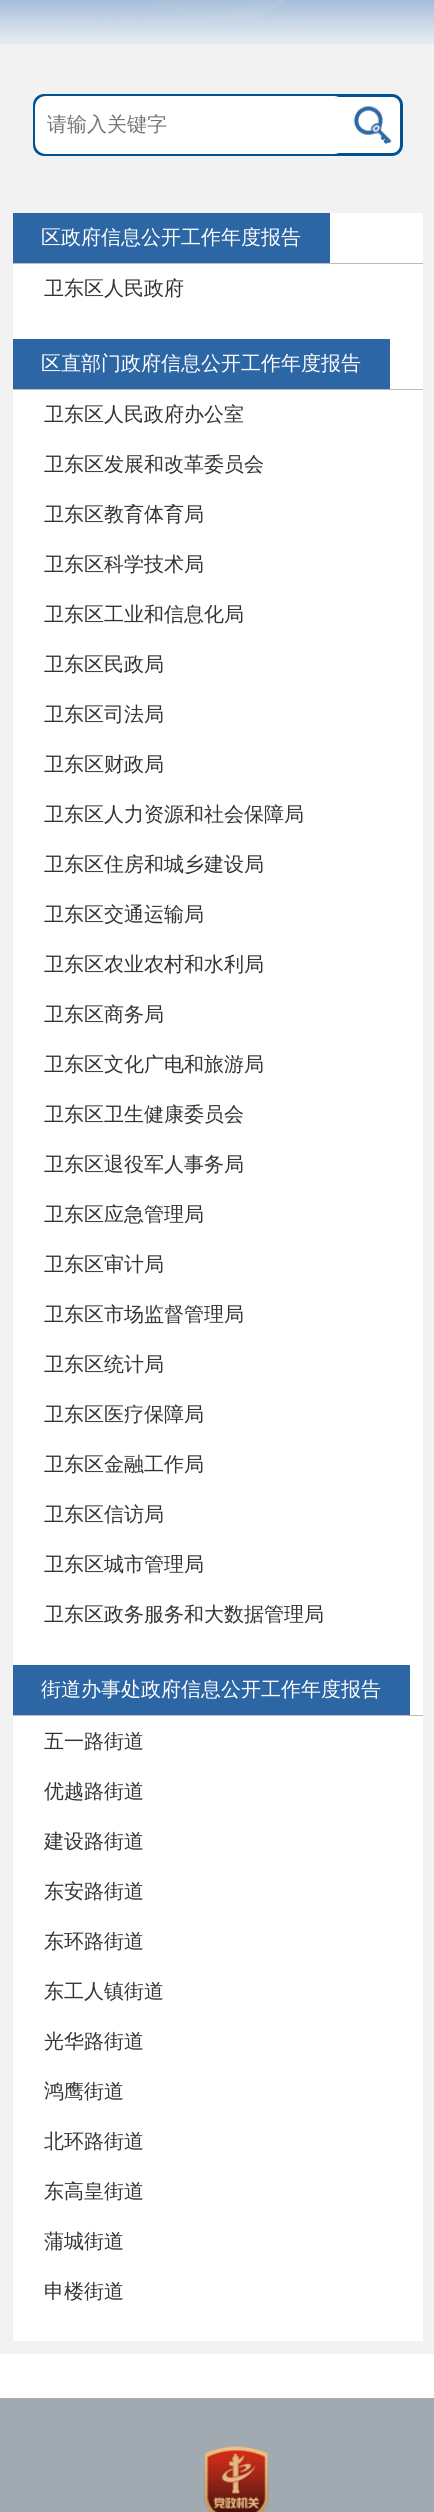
#include <cairo/cairo.h>
#include <math.h>
#include <stddef.h>

static cairo_t *cr;

static void use_color(int r, int g, int b) {
  cairo_set_source_rgb(cr, r / 255.0, g / 255.0, b / 255.0);
}

static void text(double x, double y, const char *s, const char *family, double size, int italic, int bold, int r, int g, int b) {
  cairo_select_font_face(cr, family, italic ? CAIRO_FONT_SLANT_ITALIC : CAIRO_FONT_SLANT_NORMAL,
    bold ? CAIRO_FONT_WEIGHT_BOLD : CAIRO_FONT_WEIGHT_NORMAL);
  cairo_set_font_size(cr, size);
  use_color(r, g, b);
  cairo_move_to(cr, x, y);
  cairo_show_text(cr, s);
}

static void box(double x, double y, double w, double h, int r, int g, int b) {
  use_color(r, g, b);
  cairo_rectangle(cr, x, y, w, h);
  cairo_fill(cr);
}

static void round_rect(double x, double y, double w, double h, double r) {
  cairo_new_sub_path(cr);
  cairo_arc(cr, x + w - r, y + h - r, r, 0, M_PI / 2);
  cairo_arc(cr, x + r, y + h - r, r, M_PI / 2, M_PI);
  cairo_arc(cr, x + r, y + r, r, M_PI, 1.5 * M_PI);
  cairo_arc(cr, x + w - r, y + r, r, 1.5 * M_PI, 2 * M_PI);
  cairo_close_path(cr);
}

static void picture(const char *path, double x, double y, double w, double h) {
  cairo_surface_t *image = cairo_image_surface_create_from_png(path);
  cairo_save(cr);
  cairo_set_source_surface(cr, image, x, y);
  cairo_rectangle(cr, x, y, w, h);
  cairo_fill(cr);
  cairo_restore(cr);
  cairo_surface_destroy(image);
}

static void draw(void) {
  use_color(255, 255, 255);
  cairo_paint(cr);
  picture("img_01.png", 0, 0, 434, 44);
  box(0, 44, 434, 2310, 242, 242, 242);
  use_color(255, 255, 255);
  round_rect(34.5, 95.5, 367, 59, 9.5);
  cairo_fill_preserve(cr);
  use_color(1, 82, 147);
  cairo_set_line_width(cr, 3);
  cairo_stroke(cr);
  use_color(255, 255, 255);
  round_rect(35, 96, 310, 58, 11);
  cairo_fill(cr);
  picture("img_02.png", 353, 106, 39, 38);
  box(13, 213, 410, 2128, 255, 255, 255);
  box(13, 263, 410, 1, 187, 187, 187);
  box(13, 213, 317, 50, 45, 102, 165);
  box(13, 389, 410, 1, 187, 187, 187);
  box(13, 339, 377, 50, 45, 102, 165);
  box(13, 1715, 410, 1, 187, 187, 187);
  box(13, 1665, 397, 50, 45, 102, 165);
  box(0, 2398, 434, 114, 161, 169, 177);
  picture("img_03.png", 203, 2445, 66, 67);
  text(47, 131, "请输入关键字", "WenQuanYi Zen Hei Medium", 20, 0, 0, 117, 117, 117);
  text(41, 244, "区政府信息公开工作年度报告", "WenQuanYi Zen Hei Medium", 20, 0, 0, 255, 255, 255);
  text(44, 295, "卫东区人民政府", "WenQuanYi Zen Hei Medium", 20, 0, 0, 51, 51, 51);
  text(41, 370, "区直部门政府信息公开工作年度报告", "WenQuanYi Zen Hei Medium", 20, 0, 0, 255, 255, 255);
  text(44, 421, "卫东区人民政府办公室", "WenQuanYi Zen Hei Medium", 20, 0, 0, 51, 51, 51);
  text(44, 471, "卫东区发展和改革委员会", "WenQuanYi Zen Hei Medium", 20, 0, 0, 51, 51, 51);
  text(44, 521, "卫东区教育体育局", "WenQuanYi Zen Hei Medium", 20, 0, 0, 51, 51, 51);
  text(44, 571, "卫东区科学技术局", "WenQuanYi Zen Hei Medium", 20, 0, 0, 51, 51, 51);
  text(44, 621, "卫东区工业和信息化局", "WenQuanYi Zen Hei Medium", 20, 0, 0, 51, 51, 51);
  text(44, 671, "卫东区民政局", "WenQuanYi Zen Hei Medium", 20, 0, 0, 51, 51, 51);
  text(44, 721, "卫东区司法局", "WenQuanYi Zen Hei Medium", 20, 0, 0, 51, 51, 51);
  text(44, 771, "卫东区财政局", "WenQuanYi Zen Hei Medium", 20, 0, 0, 51, 51, 51);
  text(44, 821, "卫东区人力资源和社会保障局", "WenQuanYi Zen Hei Medium", 20, 0, 0, 51, 51, 51);
  text(44, 871, "卫东区住房和城乡建设局", "WenQuanYi Zen Hei Medium", 20, 0, 0, 51, 51, 51);
  text(44, 921, "卫东区交通运输局", "WenQuanYi Zen Hei Medium", 20, 0, 0, 51, 51, 51);
  text(44, 971, "卫东区农业农村和水利局", "WenQuanYi Zen Hei Medium", 20, 0, 0, 51, 51, 51);
  text(44, 1021, "卫东区商务局", "WenQuanYi Zen Hei Medium", 20, 0, 0, 51, 51, 51);
  text(44, 1071, "卫东区文化广电和旅游局", "WenQuanYi Zen Hei Medium", 20, 0, 0, 51, 51, 51);
  text(44, 1121, "卫东区卫生健康委员会", "WenQuanYi Zen Hei Medium", 20, 0, 0, 51, 51, 51);
  text(44, 1171, "卫东区退役军人事务局", "WenQuanYi Zen Hei Medium", 20, 0, 0, 51, 51, 51);
  text(44, 1221, "卫东区应急管理局", "WenQuanYi Zen Hei Medium", 20, 0, 0, 51, 51, 51);
  text(44, 1271, "卫东区审计局", "WenQuanYi Zen Hei Medium", 20, 0, 0, 51, 51, 51);
  text(44, 1321, "卫东区市场监督管理局", "WenQuanYi Zen Hei Medium", 20, 0, 0, 51, 51, 51);
  text(44, 1371, "卫东区统计局", "WenQuanYi Zen Hei Medium", 20, 0, 0, 51, 51, 51);
  text(44, 1421, "卫东区医疗保障局", "WenQuanYi Zen Hei Medium", 20, 0, 0, 51, 51, 51);
  text(44, 1471, "卫东区金融工作局", "WenQuanYi Zen Hei Medium", 20, 0, 0, 51, 51, 51);
  text(44, 1521, "卫东区信访局", "WenQuanYi Zen Hei Medium", 20, 0, 0, 51, 51, 51);
  text(44, 1571, "卫东区城市管理局", "WenQuanYi Zen Hei Medium", 20, 0, 0, 51, 51, 51);
  text(44, 1621, "卫东区政务服务和大数据管理局", "WenQuanYi Zen Hei Medium", 20, 0, 0, 51, 51, 51);
  text(41, 1696, "街道办事处政府信息公开工作年度报告", "WenQuanYi Zen Hei Medium", 20, 0, 0, 255, 255, 255);
  text(44, 1748, "五一路街道", "WenQuanYi Zen Hei Medium", 20, 0, 0, 51, 51, 51);
  text(44, 1798, "优越路街道", "WenQuanYi Zen Hei Medium", 20, 0, 0, 51, 51, 51);
  text(44, 1848, "建设路街道", "WenQuanYi Zen Hei Medium", 20, 0, 0, 51, 51, 51);
  text(44, 1898, "东安路街道", "WenQuanYi Zen Hei Medium", 20, 0, 0, 51, 51, 51);
  text(44, 1948, "东环路街道", "WenQuanYi Zen Hei Medium", 20, 0, 0, 51, 51, 51);
  text(44, 1998, "东工人镇街道", "WenQuanYi Zen Hei Medium", 20, 0, 0, 51, 51, 51);
  text(44, 2048, "光华路街道", "WenQuanYi Zen Hei Medium", 20, 0, 0, 51, 51, 51);
  text(44, 2098, "鸿鹰街道", "WenQuanYi Zen Hei Medium", 20, 0, 0, 51, 51, 51);
  text(44, 2148, "北环路街道", "WenQuanYi Zen Hei Medium", 20, 0, 0, 51, 51, 51);
  text(44, 2198, "东高皇街道", "WenQuanYi Zen Hei Medium", 20, 0, 0, 51, 51, 51);
  text(44, 2248, "蒲城街道", "WenQuanYi Zen Hei Medium", 20, 0, 0, 51, 51, 51);
  text(44, 2298, "申楼街道", "WenQuanYi Zen Hei Medium", 20, 0, 0, 51, 51, 51);
}

int main(void) {
  cairo_surface_t *surface = cairo_image_surface_create(CAIRO_FORMAT_RGB24, 434, 2512);
  cr = cairo_create(surface);
  cairo_font_options_t *options = cairo_font_options_create();
  cairo_font_options_set_hint_metrics(options, CAIRO_HINT_METRICS_OFF);
  cairo_font_options_set_hint_style(options, CAIRO_HINT_STYLE_NONE);
  cairo_set_font_options(cr, options);
  cairo_set_miter_limit(cr, 4);
  draw();
  cairo_surface_write_to_png(surface, "out.png");
  cairo_font_options_destroy(options);
  cairo_destroy(cr);
  cairo_surface_destroy(surface);
  return 0;
}
